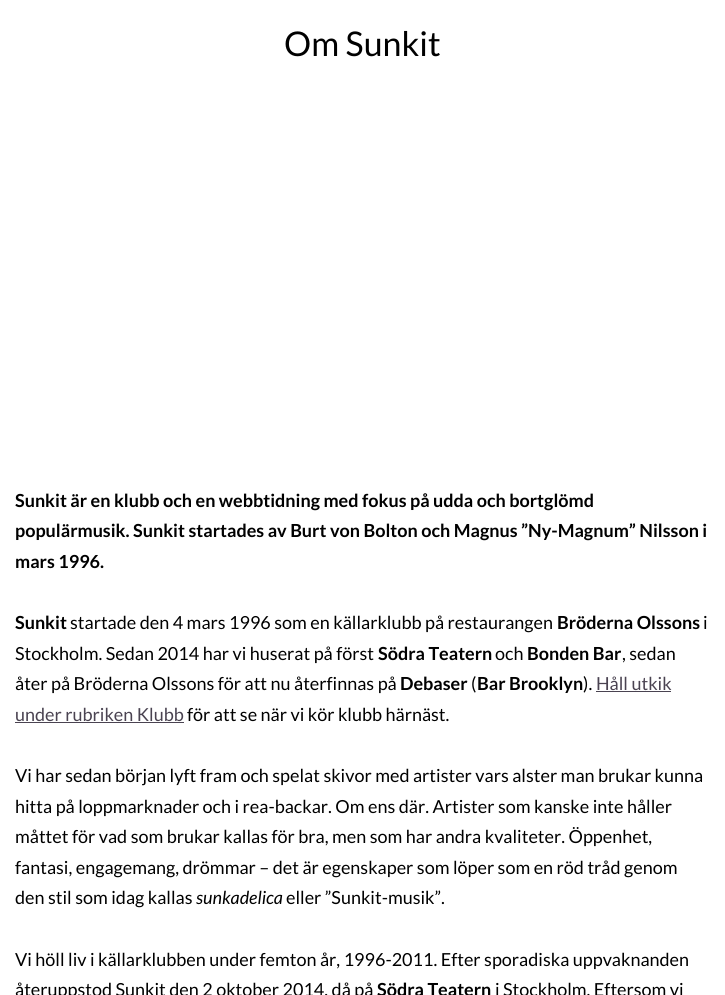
#include <cairo/cairo.h>
#include <math.h>
#include <stddef.h>

static cairo_t *cr;

static void use_color(int r, int g, int b) {
  cairo_set_source_rgb(cr, r / 255.0, g / 255.0, b / 255.0);
}

static void text(double x, double y, const char *s, const char *family, double size, int italic, int bold, int r, int g, int b) {
  cairo_select_font_face(cr, family, italic ? CAIRO_FONT_SLANT_ITALIC : CAIRO_FONT_SLANT_NORMAL,
    bold ? CAIRO_FONT_WEIGHT_BOLD : CAIRO_FONT_WEIGHT_NORMAL);
  cairo_set_font_size(cr, size);
  use_color(r, g, b);
  cairo_move_to(cr, x, y);
  cairo_show_text(cr, s);
}

static void box(double x, double y, double w, double h, int r, int g, int b) {
  use_color(r, g, b);
  cairo_rectangle(cr, x, y, w, h);
  cairo_fill(cr);
}

static void draw(void) {
  use_color(255, 255, 255);
  cairo_paint(cr);
  box(596, 691, 75, 1, 74, 67, 81);
  box(15, 722, 169, 1, 74, 67, 81);
  text(284, 56, "Om Sunkit", "Lato", 34, 0, 0, 0, 0, 0);
  text(15, 507, "Sunkit är en klubb och en webbtidning med fokus på udda och bortglömd", "Lato", 18, 0, 1, 0, 0, 0);
  text(15, 537, "populärmusik. Sunkit startades av Burt von Bolton och Magnus ”Ny-Magnum” Nilsson i", "Lato", 18, 0, 1, 0, 0, 0);
  text(15, 568, "mars 1996.", "Lato", 18, 0, 1, 0, 0, 0);
  text(15, 629, "Sunkit", "Lato", 18, 0, 1, 0, 0, 0);
  text(70, 629, "startade den 4 mars 1996 som en källarklubb på restaurangen", "Lato", 18, 0, 0, 0, 0, 0);
  text(557, 629, "Bröderna Olssons", "Lato", 18, 0, 1, 0, 0, 0);
  text(703, 629, "i", "Lato", 18, 0, 0, 0, 0, 0);
  text(15, 660, "Stockholm. Sedan 2014 har vi huserat på först", "Lato", 18, 0, 0, 0, 0, 0);
  text(378, 660, "Södra Teatern", "Lato", 18, 0, 1, 0, 0, 0);
  text(495, 660, "och", "Lato", 18, 0, 0, 0, 0, 0);
  text(527, 660, "Bonden Bar", "Lato", 18, 0, 1, 0, 0, 0);
  text(622, 660, ", sedan", "Lato", 18, 0, 0, 0, 0, 0);
  text(15, 690, "åter på Bröderna Olssons för att nu återfinnas på", "Lato", 18, 0, 0, 0, 0, 0);
  text(400, 690, "Debaser", "Lato", 18, 0, 1, 0, 0, 0);
  text(471, 690, "(", "Lato", 18, 0, 0, 0, 0, 0);
  text(477, 690, "Bar Brooklyn", "Lato", 18, 0, 1, 0, 0, 0);
  text(583, 690, ").", "Lato", 18, 0, 0, 0, 0, 0);
  text(596, 690, "Håll utkik", "Lato", 18, 0, 0, 74, 67, 81);
  text(15, 721, "under rubriken Klubb", "Lato", 18, 0, 0, 74, 67, 81);
  text(187, 721, "för att se när vi kör klubb härnäst.", "Lato", 18, 0, 0, 0, 0, 0);
  text(15, 782, "Vi har sedan början lyft fram och spelat skivor med artister vars alster man brukar kunna", "Lato", 18, 0, 0, 0, 0, 0);
  text(15, 813, "hitta på loppmarknader och i rea-backar. Om ens där. Artister som kanske inte håller", "Lato", 18, 0, 0, 0, 0, 0);
  text(15, 843, "måttet för vad som brukar kallas för bra, men som har andra kvaliteter. Öppenhet,", "Lato", 18, 0, 0, 0, 0, 0);
  text(15, 874, "fantasi, engagemang, drömmar – det är egenskaper som löper som en röd tråd genom", "Lato", 18, 0, 0, 0, 0, 0);
  text(15, 904, "den stil som idag kallas", "Lato", 18, 0, 0, 0, 0, 0);
  text(196, 904, "sunkadelica", "Lato", 18, 1, 0, 0, 0, 0);
  text(286, 904, "eller ”Sunkit-musik”.", "Lato", 18, 0, 0, 0, 0, 0);
  text(15, 966, "Vi höll liv i källarklubben under femton år, 1996-2011. Efter sporadiska uppvaknanden", "Lato", 18, 0, 0, 0, 0, 0);
  text(15, 996, "återuppstod Sunkit den 2 oktober 2014, då på", "Lato", 18, 0, 0, 0, 0, 0);
  text(377, 996, "Södra Teatern", "Lato", 18, 0, 1, 0, 0, 0);
  text(495, 996, "i Stockholm. Eftersom vi", "Lato", 18, 0, 0, 0, 0, 0);
}

int main(void) {
  cairo_surface_t *surface = cairo_image_surface_create(CAIRO_FORMAT_RGB24, 725, 995);
  cr = cairo_create(surface);
  cairo_font_options_t *options = cairo_font_options_create();
  cairo_font_options_set_hint_metrics(options, CAIRO_HINT_METRICS_OFF);
  cairo_font_options_set_hint_style(options, CAIRO_HINT_STYLE_NONE);
  cairo_set_font_options(cr, options);
  cairo_set_miter_limit(cr, 4);
  draw();
  cairo_surface_write_to_png(surface, "out.png");
  cairo_font_options_destroy(options);
  cairo_destroy(cr);
  cairo_surface_destroy(surface);
  return 0;
}
